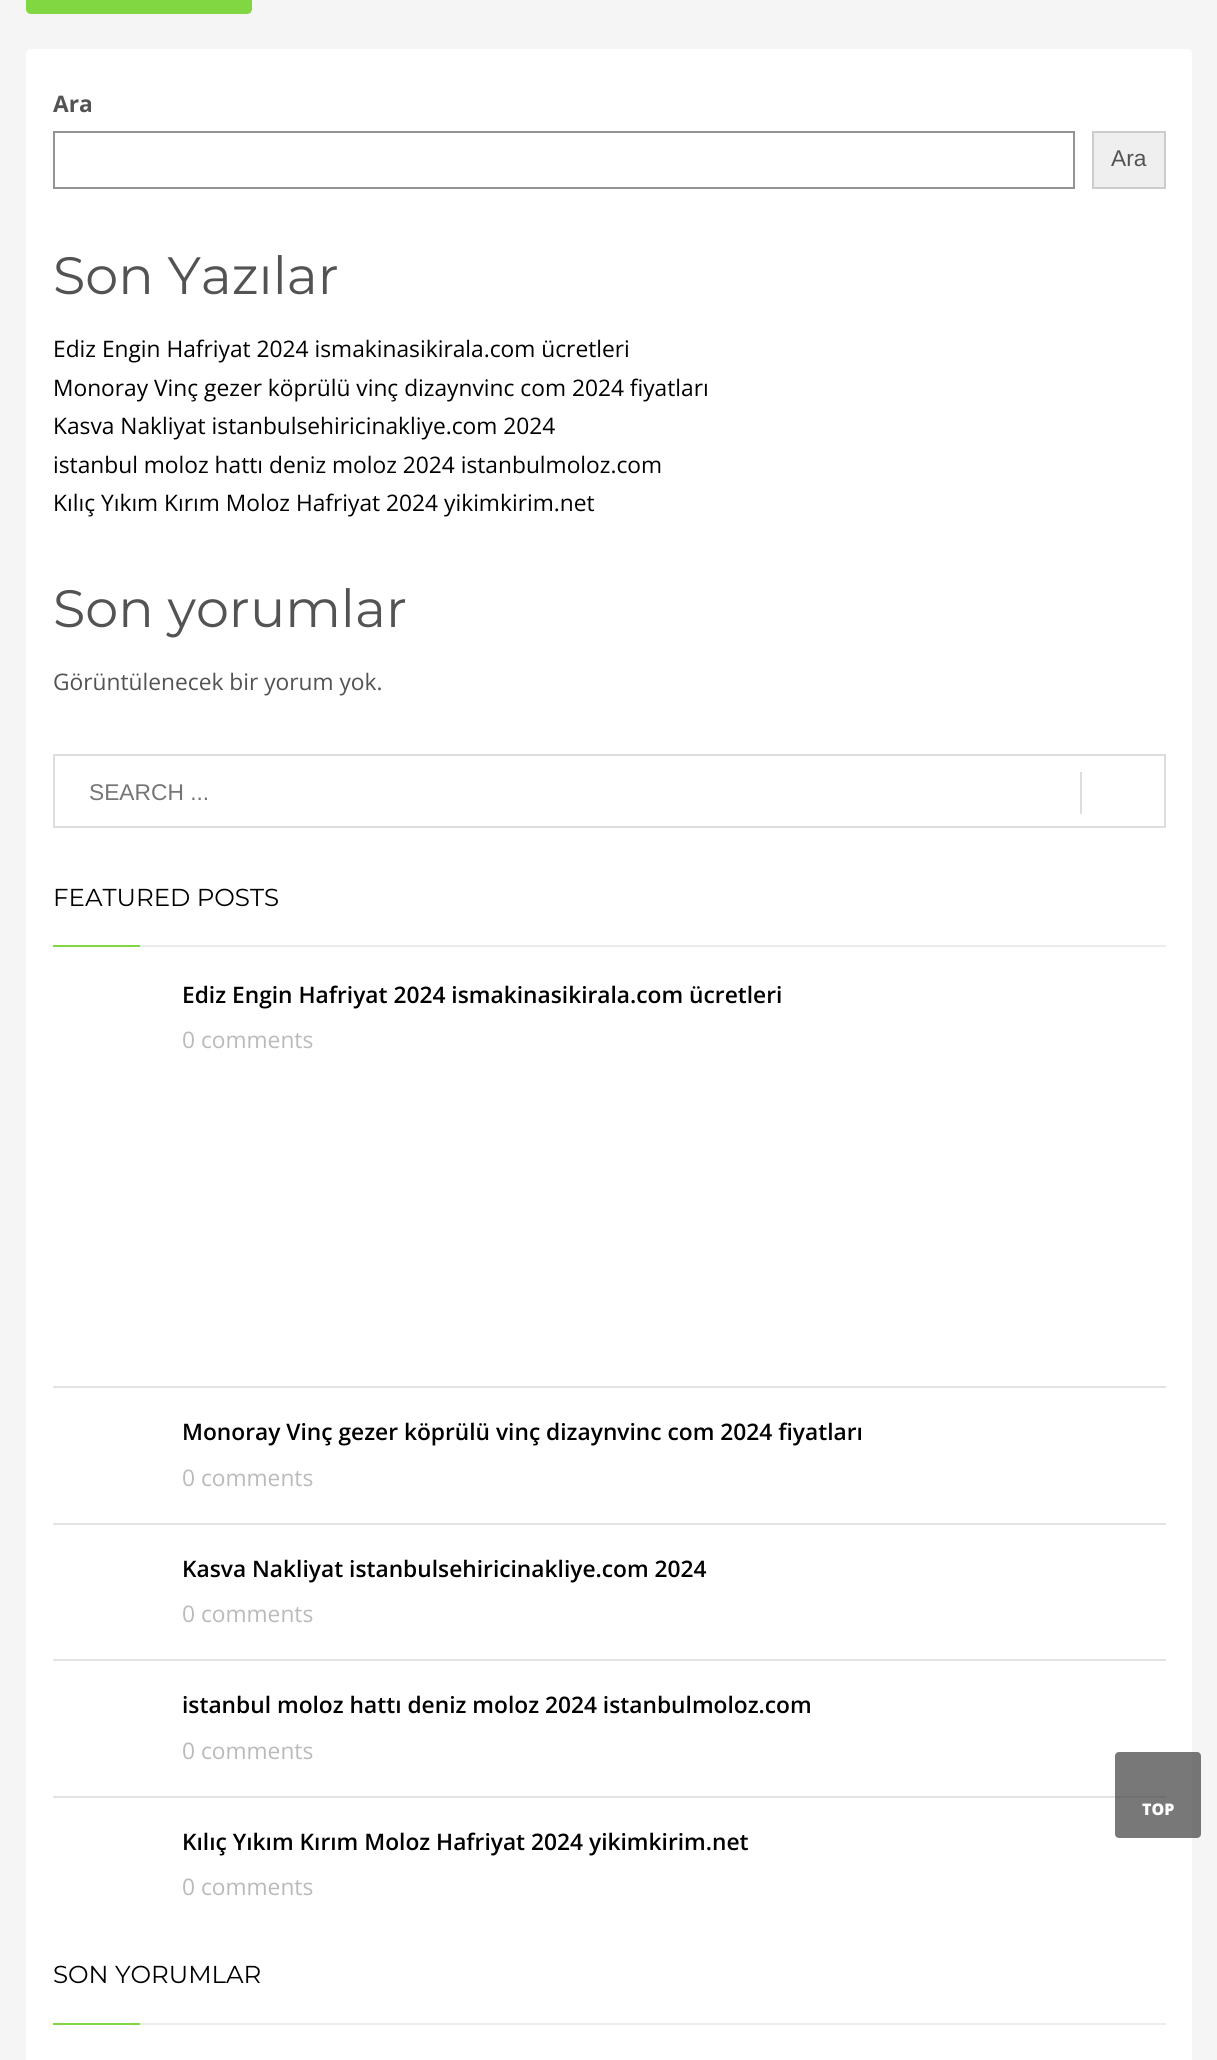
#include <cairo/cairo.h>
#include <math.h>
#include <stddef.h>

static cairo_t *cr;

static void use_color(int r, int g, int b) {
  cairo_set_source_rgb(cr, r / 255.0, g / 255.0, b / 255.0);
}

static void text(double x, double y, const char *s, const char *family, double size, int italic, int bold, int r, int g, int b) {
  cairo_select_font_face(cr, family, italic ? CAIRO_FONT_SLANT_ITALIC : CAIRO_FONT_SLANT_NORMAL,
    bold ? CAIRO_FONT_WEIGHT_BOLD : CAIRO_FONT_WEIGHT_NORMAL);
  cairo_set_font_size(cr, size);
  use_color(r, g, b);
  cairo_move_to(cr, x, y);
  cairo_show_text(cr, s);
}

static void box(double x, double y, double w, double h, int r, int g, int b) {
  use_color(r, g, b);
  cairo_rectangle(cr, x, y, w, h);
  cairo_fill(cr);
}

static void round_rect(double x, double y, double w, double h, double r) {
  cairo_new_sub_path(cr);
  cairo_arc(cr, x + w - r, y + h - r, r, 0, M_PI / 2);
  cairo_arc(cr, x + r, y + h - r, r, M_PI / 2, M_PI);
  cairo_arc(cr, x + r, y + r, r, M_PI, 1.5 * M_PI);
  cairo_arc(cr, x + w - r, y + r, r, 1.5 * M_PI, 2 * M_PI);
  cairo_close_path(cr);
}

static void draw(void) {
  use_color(245, 245, 245);
  cairo_paint(cr);
  use_color(129, 215, 66);
  round_rect(26, -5, 226, 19, 5);
  cairo_fill(cr);
  use_color(255, 255, 255);
  round_rect(26, 49, 1166, 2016, 5);
  cairo_fill(cr);
  cairo_rectangle(cr, 54, 132, 1020, 56);
  use_color(148, 148, 148);
  cairo_stroke(cr);
  use_color(239, 239, 239);
  cairo_rectangle(cr, 1093, 132, 72, 56);
  cairo_fill_preserve(cr);
  use_color(204, 204, 204);
  cairo_stroke(cr);
  cairo_rectangle(cr, 54, 755, 1111, 72);
  use_color(221, 221, 221);
  cairo_stroke(cr);
  box(1080, 772, 2, 42, 221, 221, 221);
  box(53, 945, 87, 2, 129, 215, 66);
  box(140, 945, 1026, 2, 236, 236, 236);
  box(53, 1386, 1113, 2, 227, 227, 227);
  box(53, 1523, 1113, 2, 227, 227, 227);
  box(53, 1659, 1113, 2, 227, 227, 227);
  box(53, 1796, 1113, 2, 227, 227, 227);
  box(53, 2023, 87, 2, 129, 215, 66);
  box(140, 2023, 1026, 2, 236, 236, 236);
  cairo_set_source_rgba(cr, 0.251, 0.251, 0.251, 0.7);
  round_rect(1115, 1752, 86, 86, 4);
  cairo_fill(cr);
  text(53, 112, "Ara", "Open Sans", 22.75, 0, 1, 83, 83, 83);
  text(1111, 166, "Ara", "Liberation Sans", 22.75, 0, 0, 83, 83, 83);
  text(53, 294, "Son Yazılar", "Montserrat", 52.5, 0, 0, 83, 83, 83);
  text(53, 357, "Ediz Engin Hafriyat 2024 ismakinasikirala.com ücretleri", "Open Sans", 22.75, 0, 0, 0, 0, 0);
  text(53, 396, "Monoray Vinç gezer köprülü vinç dizaynvinc com 2024 fiyatları", "Open Sans", 22.75, 0, 0, 0, 0, 0);
  text(53, 434, "Kasva Nakliyat istanbulsehiricinakliye.com 2024", "Open Sans", 22.75, 0, 0, 0, 0, 0);
  text(53, 473, "istanbul moloz hattı deniz moloz 2024 istanbulmoloz.com", "Open Sans", 22.75, 0, 0, 0, 0, 0);
  text(53, 511, "Kılıç Yıkım Kırım Moloz Hafriyat 2024 yikimkirim.net", "Open Sans", 22.75, 0, 0, 0, 0, 0);
  text(53, 627, "Son yorumlar", "Montserrat", 52.5, 0, 0, 83, 83, 83);
  text(53, 690, "Görüntülenecek bir yorum yok.", "Open Sans", 22.75, 0, 0, 83, 83, 83);
  text(89, 800, "SEARCH ...", "Liberation Sans", 22.75, 0, 0, 117, 117, 117);
  text(53, 906, "FEATURED POSTS", "Montserrat", 24.5, 0, 0, 0, 0, 0);
  text(182, 1003, "Ediz Engin Hafriyat 2024 ismakinasikirala.com ücretleri", "Open Sans SemiBold", 22.75, 0, 0, 0, 0, 0);
  text(182, 1048, "0 comments", "Open Sans", 22.75, 0, 0, 186, 186, 186);
  text(182, 1440, "Monoray Vinç gezer köprülü vinç dizaynvinc com 2024 fiyatları", "Open Sans SemiBold", 22.75, 0, 0, 0, 0, 0);
  text(182, 1486, "0 comments", "Open Sans", 22.75, 0, 0, 186, 186, 186);
  text(182, 1577, "Kasva Nakliyat istanbulsehiricinakliye.com 2024", "Open Sans SemiBold", 22.75, 0, 0, 0, 0, 0);
  text(182, 1622, "0 comments", "Open Sans", 22.75, 0, 0, 186, 186, 186);
  text(182, 1713, "istanbul moloz hattı deniz moloz 2024 istanbulmoloz.com", "Open Sans SemiBold", 22.75, 0, 0, 0, 0, 0);
  text(182, 1759, "0 comments", "Open Sans", 22.75, 0, 0, 186, 186, 186);
  text(182, 1850, "Kılıç Yıkım Kırım Moloz Hafriyat 2024 yikimkirim.net", "Open Sans SemiBold", 22.75, 0, 0, 0, 0, 0);
  text(182, 1895, "0 comments", "Open Sans", 22.75, 0, 0, 186, 186, 186);
  text(53, 1983, "SON YORUMLAR", "Montserrat", 24.5, 0, 0, 0, 0, 0);
  text(1142, 1815, "TOP", "Open Sans ExtraBold", 16, 0, 0, 255, 255, 255);
}

int main(void) {
  cairo_surface_t *surface = cairo_image_surface_create(CAIRO_FORMAT_RGB24, 1217, 2060);
  cr = cairo_create(surface);
  cairo_font_options_t *options = cairo_font_options_create();
  cairo_font_options_set_hint_metrics(options, CAIRO_HINT_METRICS_OFF);
  cairo_font_options_set_hint_style(options, CAIRO_HINT_STYLE_NONE);
  cairo_set_font_options(cr, options);
  cairo_set_miter_limit(cr, 4);
  draw();
  cairo_surface_write_to_png(surface, "out.png");
  cairo_font_options_destroy(options);
  cairo_destroy(cr);
  cairo_surface_destroy(surface);
  return 0;
}
